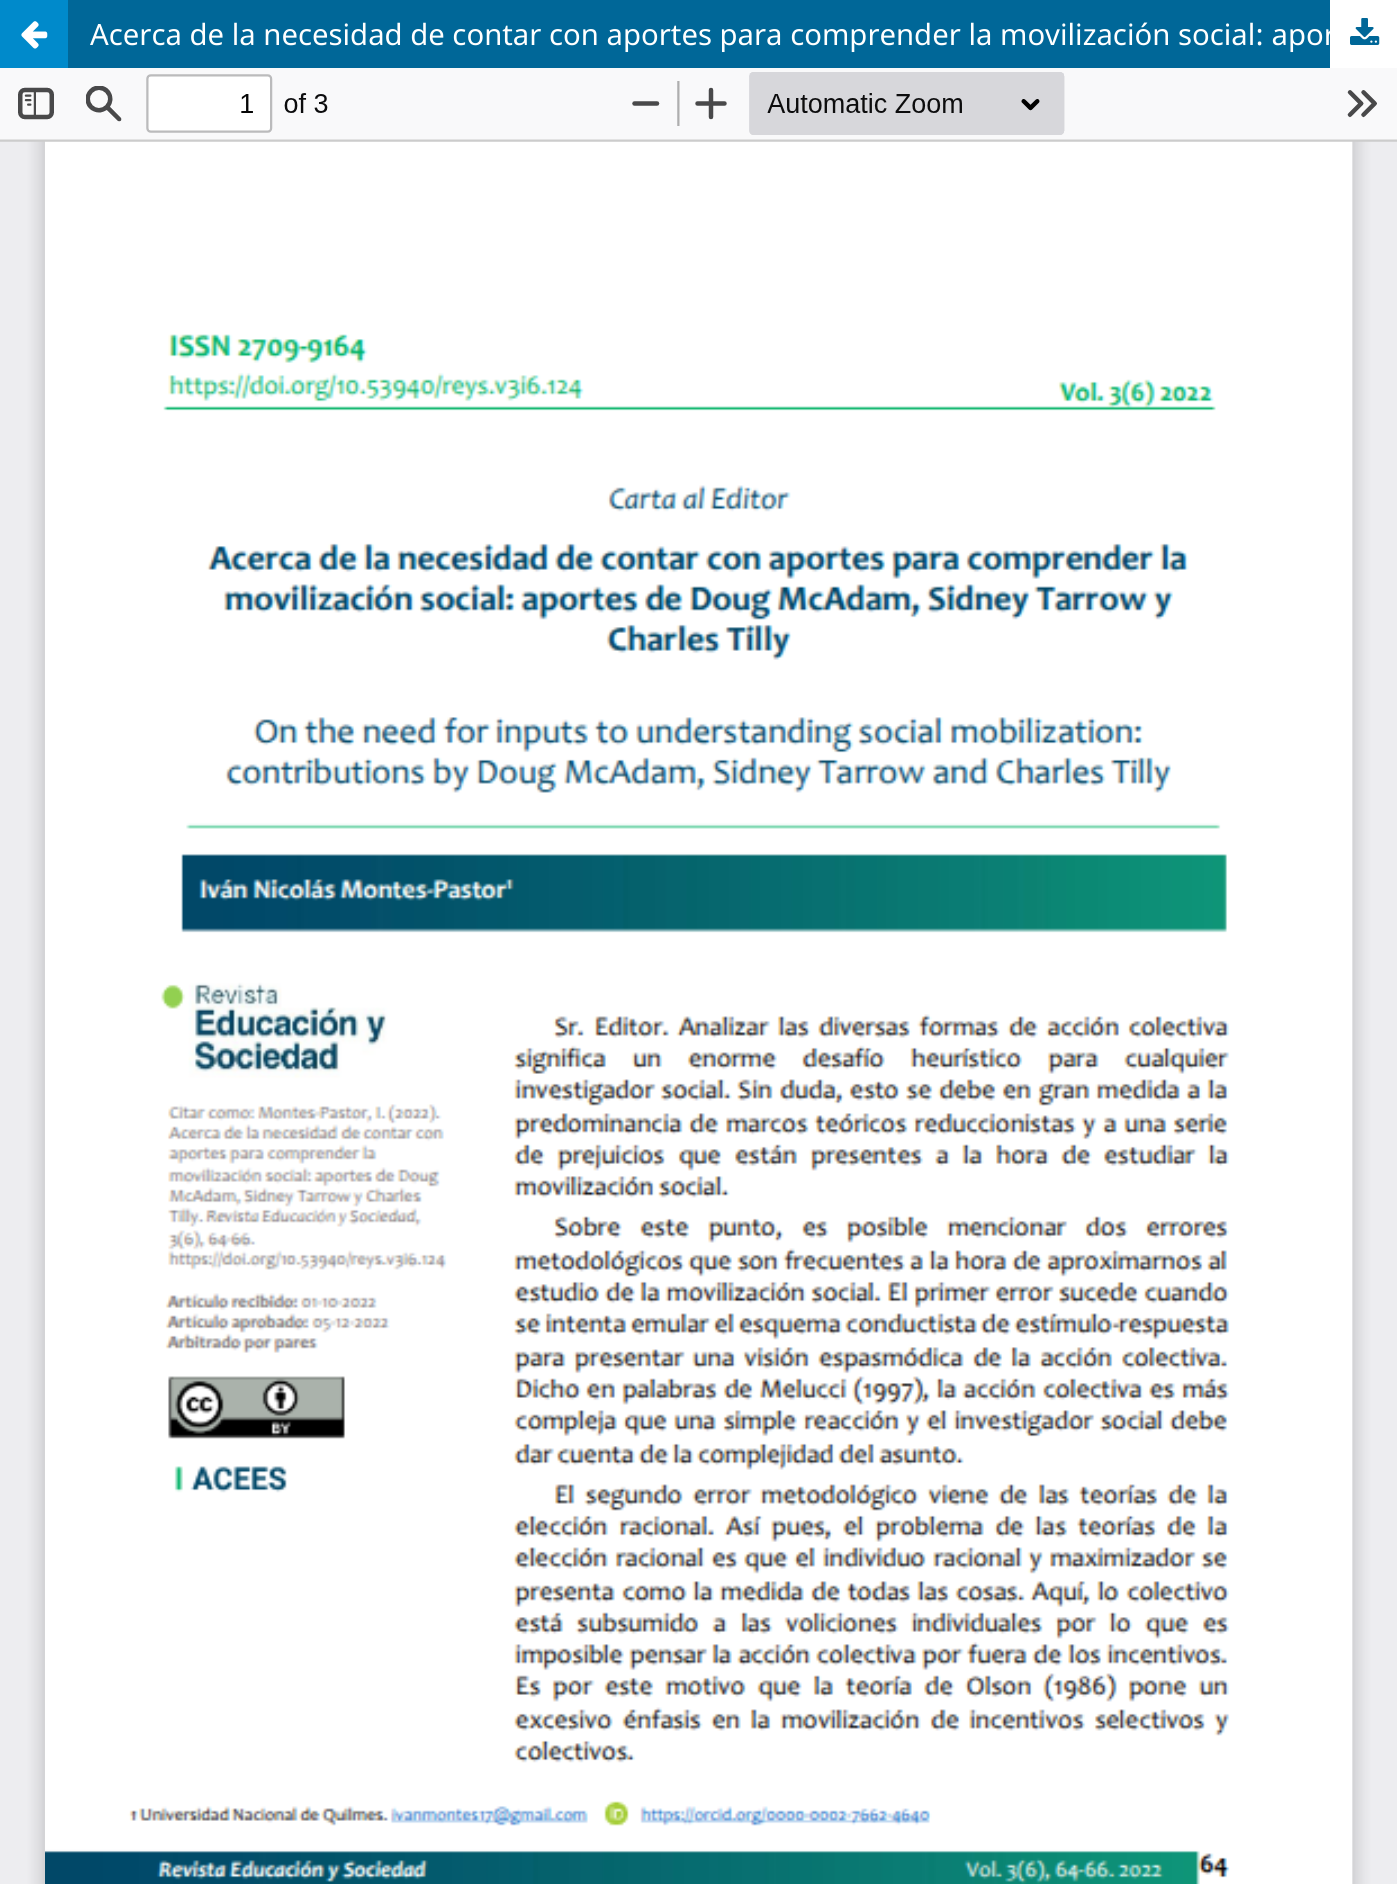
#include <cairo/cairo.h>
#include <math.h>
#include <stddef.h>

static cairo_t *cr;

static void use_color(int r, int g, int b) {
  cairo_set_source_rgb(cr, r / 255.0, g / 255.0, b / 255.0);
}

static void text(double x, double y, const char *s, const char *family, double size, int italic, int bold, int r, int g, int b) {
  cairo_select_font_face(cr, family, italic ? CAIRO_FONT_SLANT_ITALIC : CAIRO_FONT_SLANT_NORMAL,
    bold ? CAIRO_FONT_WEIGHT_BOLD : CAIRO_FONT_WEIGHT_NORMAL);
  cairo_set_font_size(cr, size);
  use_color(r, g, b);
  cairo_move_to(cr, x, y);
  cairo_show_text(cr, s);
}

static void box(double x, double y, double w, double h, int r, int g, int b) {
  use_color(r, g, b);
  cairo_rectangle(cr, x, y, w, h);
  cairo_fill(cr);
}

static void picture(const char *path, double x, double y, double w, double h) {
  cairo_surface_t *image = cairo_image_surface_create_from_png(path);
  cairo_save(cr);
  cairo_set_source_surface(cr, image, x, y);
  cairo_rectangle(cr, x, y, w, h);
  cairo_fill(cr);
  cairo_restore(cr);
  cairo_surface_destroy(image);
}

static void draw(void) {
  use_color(255, 255, 255);
  cairo_paint(cr);
  box(68, 0, 1262, 68, 0, 103, 152);
  box(0, 0, 68, 68, 0, 138, 203);
  picture("img_01.png", 21, 21, 27, 28);
  picture("img_02.png", 1350, 18, 30, 27);
  picture("img_03.png", 0, 68, 1397, 1816);
  text(90, 45, "Acerca de la necesidad de contar con aportes para comprender la movilización social: apor", "Noto Sans", 29.3, 0, 0, 255, 255, 255);
}

int main(void) {
  cairo_surface_t *surface = cairo_image_surface_create(CAIRO_FORMAT_RGB24, 1397, 1884);
  cr = cairo_create(surface);
  cairo_font_options_t *options = cairo_font_options_create();
  cairo_font_options_set_hint_metrics(options, CAIRO_HINT_METRICS_OFF);
  cairo_font_options_set_hint_style(options, CAIRO_HINT_STYLE_NONE);
  cairo_set_font_options(cr, options);
  cairo_set_miter_limit(cr, 4);
  draw();
  cairo_surface_write_to_png(surface, "out.png");
  cairo_font_options_destroy(options);
  cairo_destroy(cr);
  cairo_surface_destroy(surface);
  return 0;
}
